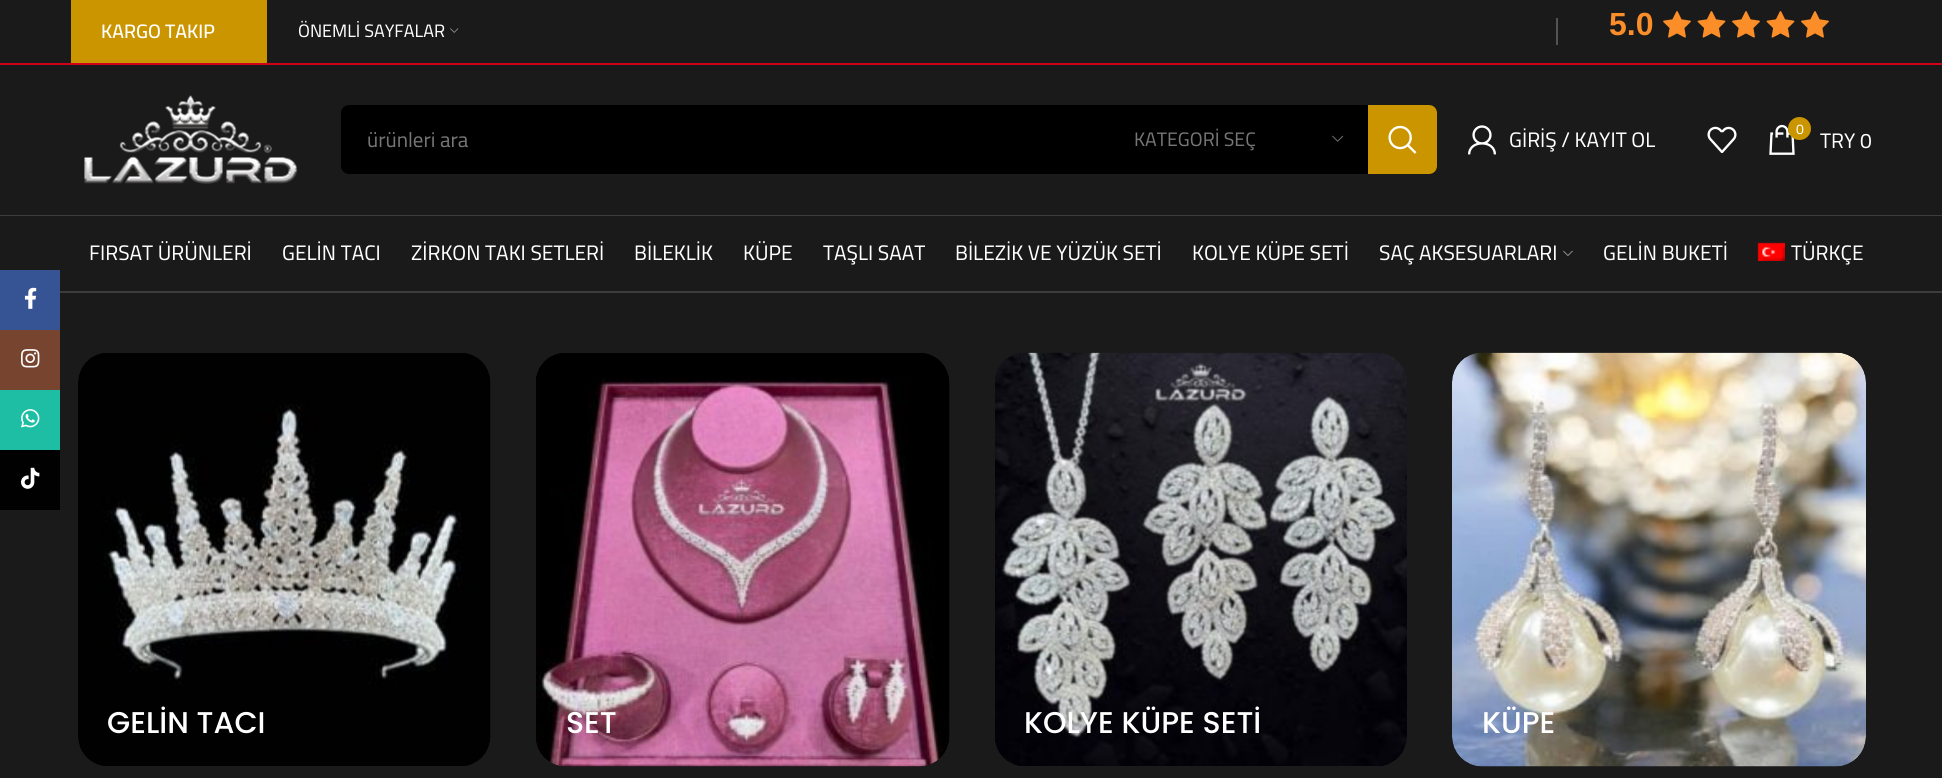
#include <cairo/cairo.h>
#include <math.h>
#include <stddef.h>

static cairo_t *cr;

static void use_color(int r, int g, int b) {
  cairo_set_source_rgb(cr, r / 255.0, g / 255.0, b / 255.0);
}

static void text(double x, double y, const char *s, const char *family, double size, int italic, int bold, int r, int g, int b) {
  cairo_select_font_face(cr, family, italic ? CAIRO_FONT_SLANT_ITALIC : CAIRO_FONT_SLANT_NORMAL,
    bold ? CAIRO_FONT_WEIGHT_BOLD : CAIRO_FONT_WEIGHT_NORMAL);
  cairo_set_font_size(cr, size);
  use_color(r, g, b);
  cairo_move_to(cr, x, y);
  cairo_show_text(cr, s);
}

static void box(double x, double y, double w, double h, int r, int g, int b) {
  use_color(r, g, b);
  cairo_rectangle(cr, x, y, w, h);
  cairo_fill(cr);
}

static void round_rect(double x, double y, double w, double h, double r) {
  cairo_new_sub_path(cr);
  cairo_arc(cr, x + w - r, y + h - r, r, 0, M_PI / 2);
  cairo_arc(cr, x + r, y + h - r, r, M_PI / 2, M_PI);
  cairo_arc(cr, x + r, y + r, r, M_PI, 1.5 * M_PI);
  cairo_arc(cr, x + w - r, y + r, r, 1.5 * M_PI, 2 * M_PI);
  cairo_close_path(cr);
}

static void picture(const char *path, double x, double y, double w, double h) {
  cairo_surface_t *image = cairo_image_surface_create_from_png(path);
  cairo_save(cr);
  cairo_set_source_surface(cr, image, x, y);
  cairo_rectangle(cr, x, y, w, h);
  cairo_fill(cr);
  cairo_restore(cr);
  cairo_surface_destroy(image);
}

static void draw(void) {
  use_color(26, 26, 26);
  cairo_paint(cr);
  box(0, 270, 60, 60, 54, 84, 147);
  picture("img_01.png", 24, 287, 13, 22);
  box(0, 330, 60, 60, 119, 68, 48);
  picture("img_02.png", 21, 349, 19, 19);
  box(0, 390, 60, 60, 30, 190, 165);
  picture("img_03.png", 21, 409, 19, 19);
  box(0, 450, 60, 60, 1, 1, 1);
  picture("img_04.png", 21, 467, 19, 22);
  box(0, 63, 1942, 2, 208, 2, 27);
  box(71, 0, 196, 63, 203, 149, 0);
  picture("img_05.png", 450, 28, 9, 5);
  box(1556, 18, 2, 27, 83, 83, 83);
  picture("img_06.png", 1663, 11, 28, 27);
  picture("img_07.png", 1697, 11, 29, 27);
  picture("img_06.png", 1732, 11, 28, 27);
  picture("img_07.png", 1766, 11, 29, 27);
  picture("img_06.png", 1801, 11, 28, 27);
  box(0, 215, 1942, 1, 60, 60, 60);
  picture("img_08.png", 84, 95, 214, 89);
  use_color(0, 0, 0);
  round_rect(341, 105, 1096, 69, 8);
  cairo_fill(cr);
  picture("img_09.png", 1332, 135, 12, 7);
  use_color(203, 149, 0);
  cairo_new_path(cr);
  cairo_move_to(cr, 1368, 105);
  cairo_line_to(cr, 1429, 105);
  cairo_curve_to(cr, 1433.5, 105, 1437, 108.5, 1437, 113);
  cairo_line_to(cr, 1437, 166);
  cairo_curve_to(cr, 1437, 170.5, 1433.5, 174, 1429, 174);
  cairo_line_to(cr, 1368, 174);
  cairo_close_path(cr);
  cairo_fill(cr);
  picture("img_10.png", 1388, 125, 29, 29);
  picture("img_11.png", 1468, 125, 28, 30);
  picture("img_12.png", 1707, 126, 30, 27);
  picture("img_13.png", 1769, 124, 26, 31);
  cairo_arc(cr, 1799.5, 128.5, 11.5, 0, 2 * M_PI);
  cairo_fill(cr);
  box(60, 291, 1882, 2, 60, 60, 60);
  picture("img_14.png", 1563, 250, 10, 6);
  picture("img_15.png", 1757, 242, 28, 19);
  picture("img_16.png", 78, 353, 413, 413);
  picture("img_17.png", 536, 353, 414, 414);
  picture("img_18.png", 995, 352, 412, 414);
  picture("img_19.png", 1452, 352, 414, 415);
  text(101, 38, "KARGO TAKIP", "Cairo SemiBold", 19.5, 0, 0, 255, 255, 255);
  text(298, 37, "ÖNEMLİ SAYFALAR", "Cairo", 18, 0, 0, 255, 255, 255);
  text(1609, 35, "5.0", "Liberation Sans", 32, 0, 1, 251, 142, 40);
  text(367, 147, "ürünleri ara", "Cairo", 21, 0, 0, 118, 118, 118);
  text(1134, 146, "KATEGORİ SEÇ", "Cairo", 19.5, 0, 0, 118, 118, 118);
  text(1509, 147, "GİRİŞ / KAYIT OL", "Cairo", 21, 0, 0, 255, 255, 255);
  text(1796, 134, "0", "Cairo", 14, 0, 0, 255, 255, 255);
  text(1820, 148, "TRY 0", "Cairo", 21, 0, 0, 255, 255, 255);
  text(89, 260, "FIRSAT ÜRÜNLERİ", "Cairo", 21, 0, 0, 255, 255, 255);
  text(282, 260, "GELİN TACI", "Cairo", 21, 0, 0, 255, 255, 255);
  text(411, 260, "ZİRKON TAKI SETLERİ", "Cairo", 21, 0, 0, 255, 255, 255);
  text(634, 260, "BİLEKLİK", "Cairo", 21, 0, 0, 255, 255, 255);
  text(743, 260, "KÜPE", "Cairo", 21, 0, 0, 255, 255, 255);
  text(823, 260, "TAŞLI SAAT", "Cairo", 21, 0, 0, 255, 255, 255);
  text(955, 260, "BİLEZİK VE YÜZÜK SETİ", "Cairo", 21, 0, 0, 255, 255, 255);
  text(1192, 260, "KOLYE KÜPE SETİ", "Cairo", 21, 0, 0, 255, 255, 255);
  text(1379, 260, "SAÇ AKSESUARLARI", "Cairo", 21, 0, 0, 255, 255, 255);
  text(1603, 260, "GELİN BUKETİ", "Cairo", 21, 0, 0, 255, 255, 255);
  text(1791, 260, "TÜRKÇE", "Cairo", 21, 0, 0, 255, 255, 255);
  text(107, 733, "GELİN TACI", "Poppins Medium", 30, 0, 0, 255, 255, 255);
  text(566, 733, "SET", "Poppins Medium", 30, 0, 0, 255, 255, 255);
  text(1024, 733, "KOLYE KÜPE SETİ", "Poppins Medium", 30, 0, 0, 255, 255, 255);
  text(1482, 733, "KÜPE", "Poppins Medium", 30, 0, 0, 255, 255, 255);
}

int main(void) {
  cairo_surface_t *surface = cairo_image_surface_create(CAIRO_FORMAT_RGB24, 1942, 778);
  cr = cairo_create(surface);
  cairo_font_options_t *options = cairo_font_options_create();
  cairo_font_options_set_hint_metrics(options, CAIRO_HINT_METRICS_OFF);
  cairo_font_options_set_hint_style(options, CAIRO_HINT_STYLE_NONE);
  cairo_set_font_options(cr, options);
  cairo_set_miter_limit(cr, 4);
  draw();
  cairo_surface_write_to_png(surface, "out.png");
  cairo_font_options_destroy(options);
  cairo_destroy(cr);
  cairo_surface_destroy(surface);
  return 0;
}
